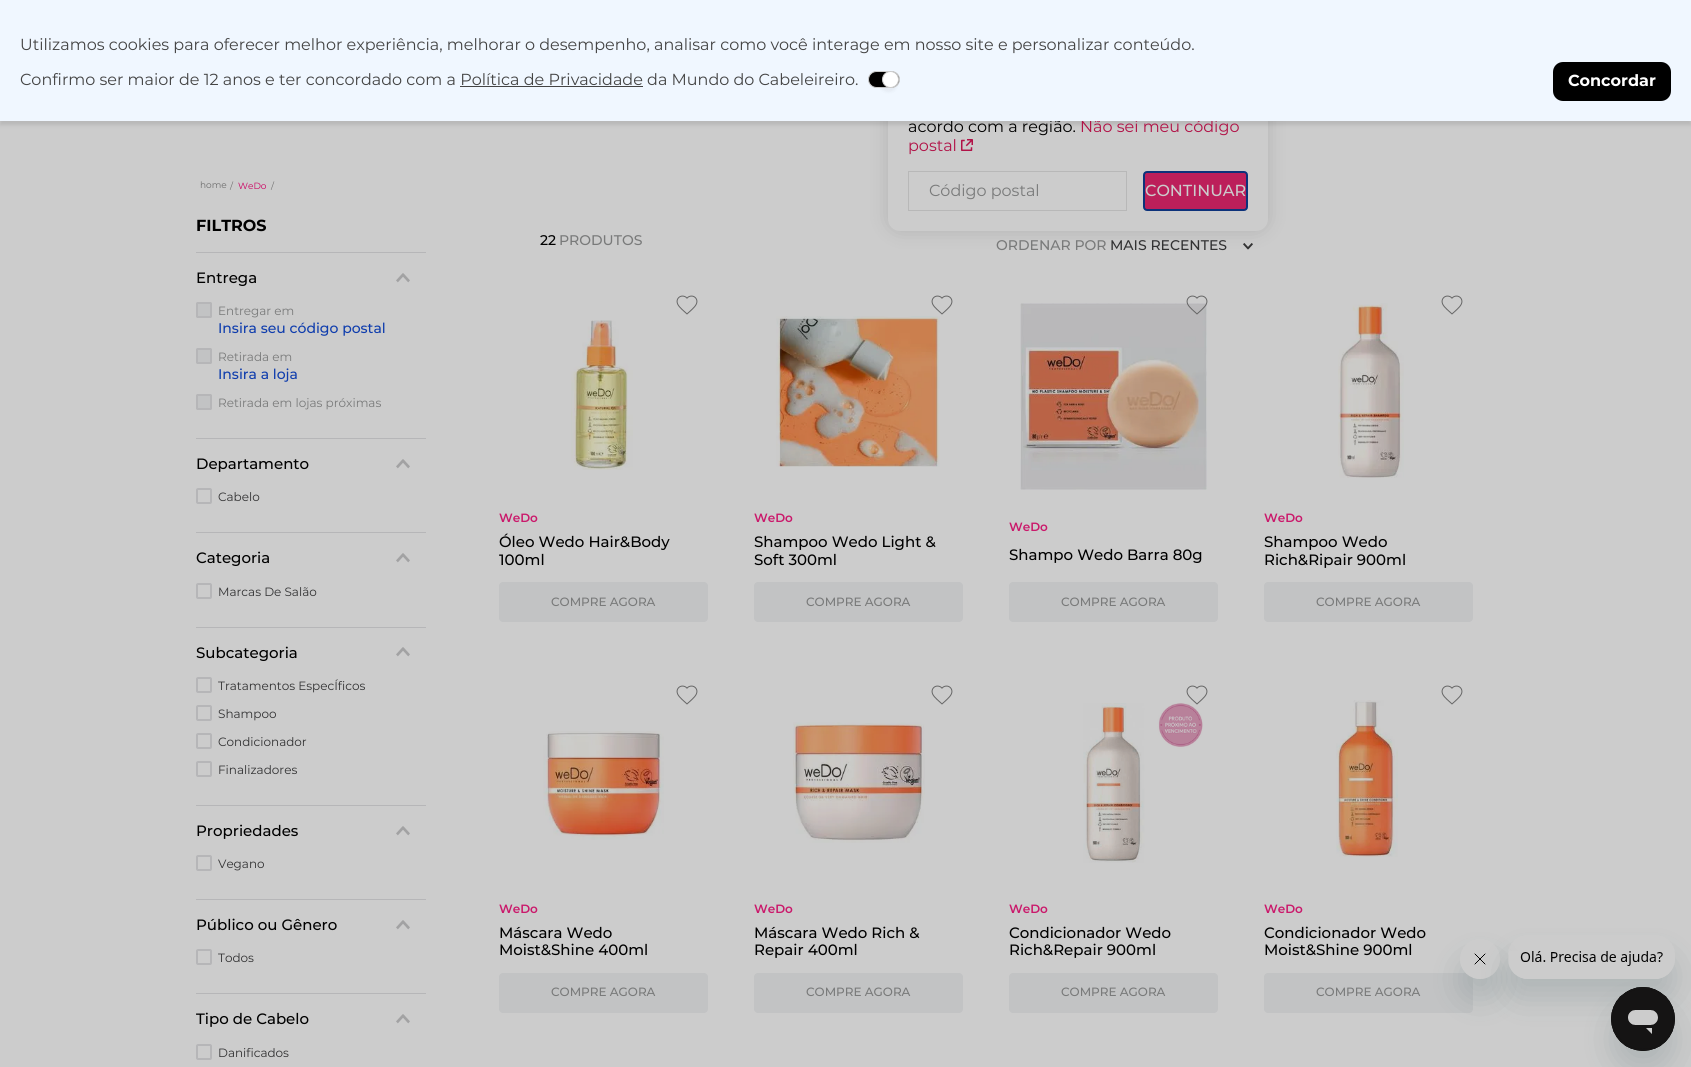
#include <cairo/cairo.h>
#include <math.h>
#include <stddef.h>

static cairo_t *cr;

static void use_color(int r, int g, int b) {
  cairo_set_source_rgb(cr, r / 255.0, g / 255.0, b / 255.0);
}

static void text(double x, double y, const char *s, const char *family, double size, int italic, int bold, int r, int g, int b) {
  cairo_select_font_face(cr, family, italic ? CAIRO_FONT_SLANT_ITALIC : CAIRO_FONT_SLANT_NORMAL,
    bold ? CAIRO_FONT_WEIGHT_BOLD : CAIRO_FONT_WEIGHT_NORMAL);
  cairo_set_font_size(cr, size);
  use_color(r, g, b);
  cairo_move_to(cr, x, y);
  cairo_show_text(cr, s);
}

static void box(double x, double y, double w, double h, int r, int g, int b) {
  use_color(r, g, b);
  cairo_rectangle(cr, x, y, w, h);
  cairo_fill(cr);
}

static void round_rect(double x, double y, double w, double h, double r) {
  cairo_new_sub_path(cr);
  cairo_arc(cr, x + w - r, y + h - r, r, 0, M_PI / 2);
  cairo_arc(cr, x + r, y + h - r, r, M_PI / 2, M_PI);
  cairo_arc(cr, x + r, y + r, r, M_PI, 1.5 * M_PI);
  cairo_arc(cr, x + w - r, y + r, r, 1.5 * M_PI, 2 * M_PI);
  cairo_close_path(cr);
}

static void shadow(double x, double y, double w, double h, double r, double blur, double alpha) {
  cairo_push_group_with_content(cr, CAIRO_CONTENT_ALPHA);
  cairo_set_operator(cr, CAIRO_OPERATOR_SOURCE);
  for (int i = 15; i >= -15 && fmin(w, h) + blur * i / 3 > 0; i -= 2) {
    double e = blur * i / 6;
    cairo_set_source_rgba(cr, 0, 0, 0, alpha * erfc((i - 1) / 8.5) / 2);
    round_rect(x - e, y - e, w + 2 * e, h + 2 * e, fmax(0, fmin(r + e + blur * .6, fmin(w, h) / 2 + e)));
    cairo_fill(cr);
  }
  cairo_pattern_t *soft = cairo_pop_group(cr);
  cairo_mask(cr, soft);
  cairo_pattern_destroy(soft);
}

static void picture(const char *path, double x, double y, double w, double h) {
  cairo_surface_t *image = cairo_image_surface_create_from_png(path);
  cairo_save(cr);
  cairo_set_source_surface(cr, image, x, y);
  cairo_rectangle(cr, x, y, w, h);
  cairo_fill(cr);
  cairo_restore(cr);
  cairo_surface_destroy(image);
}

static void draw(void) {
  use_color(204, 204, 204);
  cairo_paint(cr);
  picture("img_03.png", 1243, 243, 10, 7);
  use_color(0, 0, 0);
  shadow(888, 80, 380, 151, 12, 10, 0.12);
  use_color(204, 204, 204);
  round_rect(888, 80, 380, 151, 12);
  cairo_fill(cr);
  use_color(0, 0, 0);
  shadow(0, 4, 1691, 121, 0, 2, 0.1);
  picture("img_01.png", 961, 139, 12, 12);
  cairo_rectangle(cr, 908.5, 171.5, 218, 39);
  use_color(184, 184, 184);
  cairo_set_line_width(cr, 1);
  cairo_stroke(cr);
  use_color(188, 31, 90);
  round_rect(1144, 172, 103, 38, 3);
  cairo_fill_preserve(cr);
  use_color(12, 50, 122);
  cairo_set_line_width(cr, 2);
  cairo_stroke(cr);
  box(196, 252, 230, 1, 182, 182, 184);
  box(196, 438, 230, 1, 182, 182, 184);
  picture("img_02.png", 396, 273, 14, 10);
  use_color(194, 195, 196);
  round_rect(197, 303, 14, 14, 1);
  cairo_fill_preserve(cr);
  use_color(182, 182, 184);
  cairo_stroke(cr);
  round_rect(196.5, 302.5, 15, 15, 1.5);
  cairo_set_line_width(cr, 1);
  cairo_stroke(cr);
  use_color(194, 195, 196);
  round_rect(197, 349, 14, 14, 1);
  cairo_fill_preserve(cr);
  use_color(182, 182, 184);
  cairo_set_line_width(cr, 2);
  cairo_stroke(cr);
  round_rect(196.5, 348.5, 15, 15, 1.5);
  cairo_set_line_width(cr, 1);
  cairo_stroke(cr);
  use_color(194, 195, 196);
  round_rect(197, 395, 14, 14, 1);
  cairo_fill_preserve(cr);
  use_color(182, 182, 184);
  cairo_set_line_width(cr, 2);
  cairo_stroke(cr);
  round_rect(196.5, 394.5, 15, 15, 1.5);
  cairo_set_line_width(cr, 1);
  cairo_stroke(cr);
  box(196, 532, 230, 1, 182, 182, 184);
  picture("img_02.png", 396, 459, 14, 10);
  round_rect(197, 489, 14, 14, 1);
  cairo_set_line_width(cr, 2);
  cairo_stroke(cr);
  box(196, 627, 230, 1, 182, 182, 184);
  picture("img_02.png", 396, 553, 14, 10);
  round_rect(197, 584, 14, 14, 1);
  cairo_stroke(cr);
  box(196, 805, 230, 1, 182, 182, 184);
  picture("img_02.png", 396, 647, 14, 10);
  round_rect(197, 678, 14, 14, 1);
  cairo_stroke(cr);
  round_rect(197, 706, 14, 14, 1);
  cairo_stroke(cr);
  round_rect(197, 734, 14, 14, 1);
  cairo_stroke(cr);
  round_rect(197, 762, 14, 14, 1);
  cairo_stroke(cr);
  box(196, 899, 230, 1, 182, 182, 184);
  picture("img_02.png", 396, 826, 14, 10);
  round_rect(197, 856, 14, 14, 1);
  cairo_stroke(cr);
  box(196, 993, 230, 1, 182, 182, 184);
  picture("img_02.png", 396, 920, 14, 10);
  round_rect(197, 950, 14, 14, 1);
  cairo_stroke(cr);
  picture("img_02.png", 396, 1014, 14, 10);
  round_rect(197, 1045, 14, 14, 1);
  cairo_stroke(cr);
  picture("img_04.png", 676, 295, 22, 20);
  picture("img_05.png", 571, 320, 62, 150);
  use_color(194, 195, 196);
  round_rect(499, 582, 209, 40, 4);
  cairo_fill(cr);
  picture("img_04.png", 931, 295, 22, 20);
  picture("img_06.png", 776, 316, 164, 151);
  round_rect(754, 582, 209, 40, 4);
  cairo_fill(cr);
  picture("img_08.png", 1020, 303, 187, 187);
  picture("img_07.png", 1186, 295, 22, 20);
  round_rect(1009, 582, 209, 40, 4);
  cairo_fill(cr);
  picture("img_09.png", 1338, 303, 66, 175);
  picture("img_04.png", 1441, 295, 22, 20);
  round_rect(1264, 582, 209, 40, 4);
  cairo_fill(cr);
  picture("img_04.png", 676, 685, 22, 20);
  picture("img_10.png", 543, 731, 121, 109);
  round_rect(499, 973, 209, 40, 4);
  cairo_fill(cr);
  picture("img_04.png", 931, 685, 22, 20);
  picture("img_11.png", 793, 722, 132, 121);
  round_rect(754, 973, 209, 40, 4);
  cairo_fill(cr);
  picture("img_13.png", 1083, 703, 120, 160);
  picture("img_12.png", 1186, 685, 22, 20);
  round_rect(1009, 973, 209, 40, 4);
  cairo_fill(cr);
  picture("img_04.png", 1441, 685, 22, 20);
  picture("img_14.png", 1336, 700, 62, 157);
  round_rect(1264, 973, 209, 40, 4);
  cairo_fill(cr);
  cairo_save(cr);
  cairo_set_fill_rule(cr, CAIRO_FILL_RULE_EVEN_ODD);
  cairo_new_path(cr);
  cairo_move_to(cr, 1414, 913);
  cairo_line_to(cr, 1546, 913);
  cairo_line_to(cr, 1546, 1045);
  cairo_line_to(cr, 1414, 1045);
  cairo_close_path(cr);
  cairo_move_to(cr, 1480, 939);
  cairo_curve_to(cr, 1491, 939, 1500, 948, 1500, 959);
  cairo_curve_to(cr, 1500, 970, 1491, 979, 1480, 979);
  cairo_curve_to(cr, 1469, 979, 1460, 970, 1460, 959);
  cairo_curve_to(cr, 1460, 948, 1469, 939, 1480, 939);
  cairo_close_path(cr);
  cairo_clip(cr);
  use_color(18, 58, 62);
  shadow(1460, 959, 40, 40, 20, 15, 0.15);
  cairo_restore(cr);
  picture("img_16.png", 1466, 953, 20, 25);
  cairo_save(cr);
  cairo_set_fill_rule(cr, CAIRO_FILL_RULE_EVEN_ODD);
  cairo_new_path(cr);
  cairo_move_to(cr, 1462, 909);
  cairo_line_to(cr, 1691, 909);
  cairo_line_to(cr, 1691, 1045);
  cairo_line_to(cr, 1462, 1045);
  cairo_close_path(cr);
  cairo_move_to(cr, 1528, 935);
  cairo_line_to(cr, 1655, 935);
  cairo_curve_to(cr, 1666, 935, 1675, 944, 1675, 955);
  cairo_line_to(cr, 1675, 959);
  cairo_curve_to(cr, 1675, 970, 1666, 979, 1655, 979);
  cairo_line_to(cr, 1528, 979);
  cairo_curve_to(cr, 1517, 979, 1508, 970, 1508, 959);
  cairo_line_to(cr, 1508, 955);
  cairo_curve_to(cr, 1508, 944, 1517, 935, 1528, 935);
  cairo_close_path(cr);
  cairo_clip(cr);
  use_color(18, 58, 62);
  shadow(1508, 955, 167, 44, 20, 15, 0.15);
  cairo_restore(cr);
  picture("img_15.png", 1509, 951, 160, 28);
  use_color(18, 58, 62);
  shadow(1611, 1007, 64, 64, 32, 15, 0.15);
  picture("img_17.png", 1611, 987, 64, 64);
  text(908, 132, "acordo com a região.", "Montserrat", 16, 0, 0, 0, 0, 0);
  text(1080, 132, "Não sei meu código", "Montserrat", 16, 0, 0, 177, 18, 71);
  box(0, 0, 1691, 121, 240, 247, 255);
  use_color(0, 0, 0);
  round_rect(868.5, 71.5, 31, 16, 8);
  cairo_fill_preserve(cr);
  use_color(204, 204, 204);
  cairo_set_line_width(cr, 1);
  cairo_stroke(cr);
  use_color(0, 0, 0);
  shadow(880, 75, 17, 17, 8.5, 1.5, 0.05);
  use_color(255, 255, 255);
  cairo_arc(cr, 890.5, 79.5, 8, 0, 2 * M_PI);
  cairo_fill_preserve(cr);
  use_color(204, 204, 204);
  cairo_stroke(cr);
  use_color(0, 0, 0);
  round_rect(1553, 62, 118, 39, 10);
  cairo_fill(cr);
  text(1568, 86, "Concordar", "Montserrat", 16, 0, 1, 255, 255, 255);
  box(460, 86, 183, 1, 68, 68, 68);
  text(20, 85, "Confirmo ser maior de 12 anos e ter concordado com a Política de Privacidade da Mundo do Cabeleireiro.", "Montserrat", 16, 0, 0, 68, 68, 68);
  text(20, 50, "Utilizamos cookies para oferecer melhor experiência, melhorar o desempenho, analisar como você interage em nosso site e personalizar conteúdo.", "Montserrat", 16, 0, 0, 68, 68, 68);
  text(908, 151, "postal", "Montserrat", 16, 0, 0, 177, 18, 71);
  text(929, 196, "Código postal", "Montserrat", 16, 0, 0, 121, 122, 122);
  text(1145, 196, "CONTINUAR", "Montserrat Medium", 16, 0, 0, 204, 204, 204);
  text(200, 188, "home", "Montserrat", 9, 0, 0, 109, 109, 109);
  text(230, 189, "/", "Montserrat", 9, 0, 0, 109, 109, 109);
  text(238, 189, "WeDo", "Montserrat", 9, 0, 0, 204, 0, 97);
  text(271, 189, "/", "Montserrat", 9, 0, 0, 109, 109, 109);
  text(196, 231, "FILTROS", "Montserrat", 16, 0, 1, 0, 0, 0);
  text(196, 283, "Entrega", "Montserrat Medium", 15, 0, 0, 0, 0, 0);
  text(218, 315, "Entregar em", "Montserrat", 12, 0, 0, 121, 122, 122);
  text(218, 333, "Insira seu código postal", "Montserrat Medium", 14, 0, 0, 15, 61, 173);
  text(218, 361, "Retirada em", "Montserrat", 12, 0, 0, 121, 122, 122);
  text(218, 379, "Insira a loja", "Montserrat Medium", 14, 0, 0, 15, 61, 173);
  text(218, 407, "Retirada em lojas próximas", "Montserrat", 12, 0, 0, 121, 122, 122);
  text(196, 469, "Departamento", "Montserrat Medium", 15, 0, 0, 0, 0, 0);
  text(218, 501, "Cabelo", "Montserrat", 12, 0, 0, 50, 50, 51);
  text(196, 563, "Categoria", "Montserrat Medium", 15, 0, 0, 0, 0, 0);
  text(218, 596, "Marcas De Salão", "Montserrat", 12, 0, 0, 50, 50, 51);
  text(196, 658, "Subcategoria", "Montserrat Medium", 15, 0, 0, 0, 0, 0);
  text(218, 690, "Tratamentos EspecÍficos", "Montserrat", 12, 0, 0, 50, 50, 51);
  text(218, 718, "Shampoo", "Montserrat", 12, 0, 0, 50, 50, 51);
  text(218, 746, "Condicionador", "Montserrat", 12, 0, 0, 50, 50, 51);
  text(218, 774, "Finalizadores", "Montserrat", 12, 0, 0, 50, 50, 51);
  text(196, 836, "Propriedades", "Montserrat Medium", 15, 0, 0, 0, 0, 0);
  text(218, 868, "Vegano", "Montserrat", 12, 0, 0, 50, 50, 51);
  text(196, 930, "Público ou Gênero", "Montserrat Medium", 15, 0, 0, 0, 0, 0);
  text(218, 962, "Todos", "Montserrat", 12, 0, 0, 50, 50, 51);
  text(196, 1024, "Tipo de Cabelo", "Montserrat Medium", 15, 0, 0, 0, 0, 0);
  text(218, 1057, "Danificados", "Montserrat", 12, 0, 0, 50, 50, 51);
  text(540, 245, "22", "Montserrat Medium", 14, 0, 0, 0, 0, 0);
  text(559, 245, "PRODUTOS", "Montserrat Medium", 14, 0, 0, 121, 122, 122);
  text(996, 250, "ORDENAR POR", "Montserrat Medium", 14, 0, 0, 121, 122, 122);
  text(1110, 250, "MAIS RECENTES", "Montserrat Medium", 14, 0, 0, 50, 50, 51);
  text(499, 522, "WeDo", "Montserrat SemiBold", 12, 0, 0, 202, 25, 107);
  text(499, 547, "Óleo Wedo Hair&Body", "Montserrat Medium", 15, 0, 0, 0, 0, 0);
  text(499, 565, "100ml", "Montserrat Medium", 15, 0, 0, 0, 0, 0);
  text(551, 606, "COMPRE AGORA", "Montserrat Medium", 12, 0, 0, 121, 122, 122);
  text(754, 522, "WeDo", "Montserrat SemiBold", 12, 0, 0, 202, 25, 107);
  text(754, 547, "Shampoo Wedo Light &", "Montserrat Medium", 15, 0, 0, 0, 0, 0);
  text(754, 565, "Soft 300ml", "Montserrat Medium", 15, 0, 0, 0, 0, 0);
  text(806, 606, "COMPRE AGORA", "Montserrat Medium", 12, 0, 0, 121, 122, 122);
  text(1009, 531, "WeDo", "Montserrat SemiBold", 12, 0, 0, 202, 25, 107);
  text(1009, 560, "Shampo Wedo Barra 80g", "Montserrat Medium", 15, 0, 0, 0, 0, 0);
  text(1061, 606, "COMPRE AGORA", "Montserrat Medium", 12, 0, 0, 121, 122, 122);
  text(1264, 522, "WeDo", "Montserrat SemiBold", 12, 0, 0, 202, 25, 107);
  text(1264, 547, "Shampoo Wedo", "Montserrat Medium", 15, 0, 0, 0, 0, 0);
  text(1264, 565, "Rich&Ripair 900ml", "Montserrat Medium", 15, 0, 0, 0, 0, 0);
  text(1316, 606, "COMPRE AGORA", "Montserrat Medium", 12, 0, 0, 121, 122, 122);
  text(499, 913, "WeDo", "Montserrat SemiBold", 12, 0, 0, 202, 25, 107);
  text(499, 938, "Máscara Wedo", "Montserrat Medium", 15, 0, 0, 0, 0, 0);
  text(499, 955, "Moist&Shine 400ml", "Montserrat Medium", 15, 0, 0, 0, 0, 0);
  text(551, 996, "COMPRE AGORA", "Montserrat Medium", 12, 0, 0, 121, 122, 122);
  text(754, 913, "WeDo", "Montserrat SemiBold", 12, 0, 0, 202, 25, 107);
  text(754, 938, "Máscara Wedo Rich &", "Montserrat Medium", 15, 0, 0, 0, 0, 0);
  text(754, 955, "Repair 400ml", "Montserrat Medium", 15, 0, 0, 0, 0, 0);
  text(806, 996, "COMPRE AGORA", "Montserrat Medium", 12, 0, 0, 121, 122, 122);
  text(1009, 913, "WeDo", "Montserrat SemiBold", 12, 0, 0, 202, 25, 107);
  text(1009, 938, "Condicionador Wedo", "Montserrat Medium", 15, 0, 0, 0, 0, 0);
  text(1009, 955, "Rich&Repair 900ml", "Montserrat Medium", 15, 0, 0, 0, 0, 0);
  text(1061, 996, "COMPRE AGORA", "Montserrat Medium", 12, 0, 0, 121, 122, 122);
  text(1264, 913, "WeDo", "Montserrat SemiBold", 12, 0, 0, 202, 25, 107);
  text(1264, 938, "Condicionador Wedo", "Montserrat Medium", 15, 0, 0, 0, 0, 0);
  text(1264, 955, "Moist&Shine 900ml", "Montserrat Medium", 15, 0, 0, 0, 0, 0);
  text(1316, 996, "COMPRE AGORA", "Montserrat Medium", 12, 0, 0, 121, 122, 122);
}

int main(void) {
  cairo_surface_t *surface = cairo_image_surface_create(CAIRO_FORMAT_RGB24, 1691, 1067);
  cr = cairo_create(surface);
  cairo_font_options_t *options = cairo_font_options_create();
  cairo_font_options_set_hint_metrics(options, CAIRO_HINT_METRICS_OFF);
  cairo_font_options_set_hint_style(options, CAIRO_HINT_STYLE_NONE);
  cairo_set_font_options(cr, options);
  cairo_set_miter_limit(cr, 4);
  draw();
  cairo_surface_write_to_png(surface, "out.png");
  cairo_font_options_destroy(options);
  cairo_destroy(cr);
  cairo_surface_destroy(surface);
  return 0;
}
